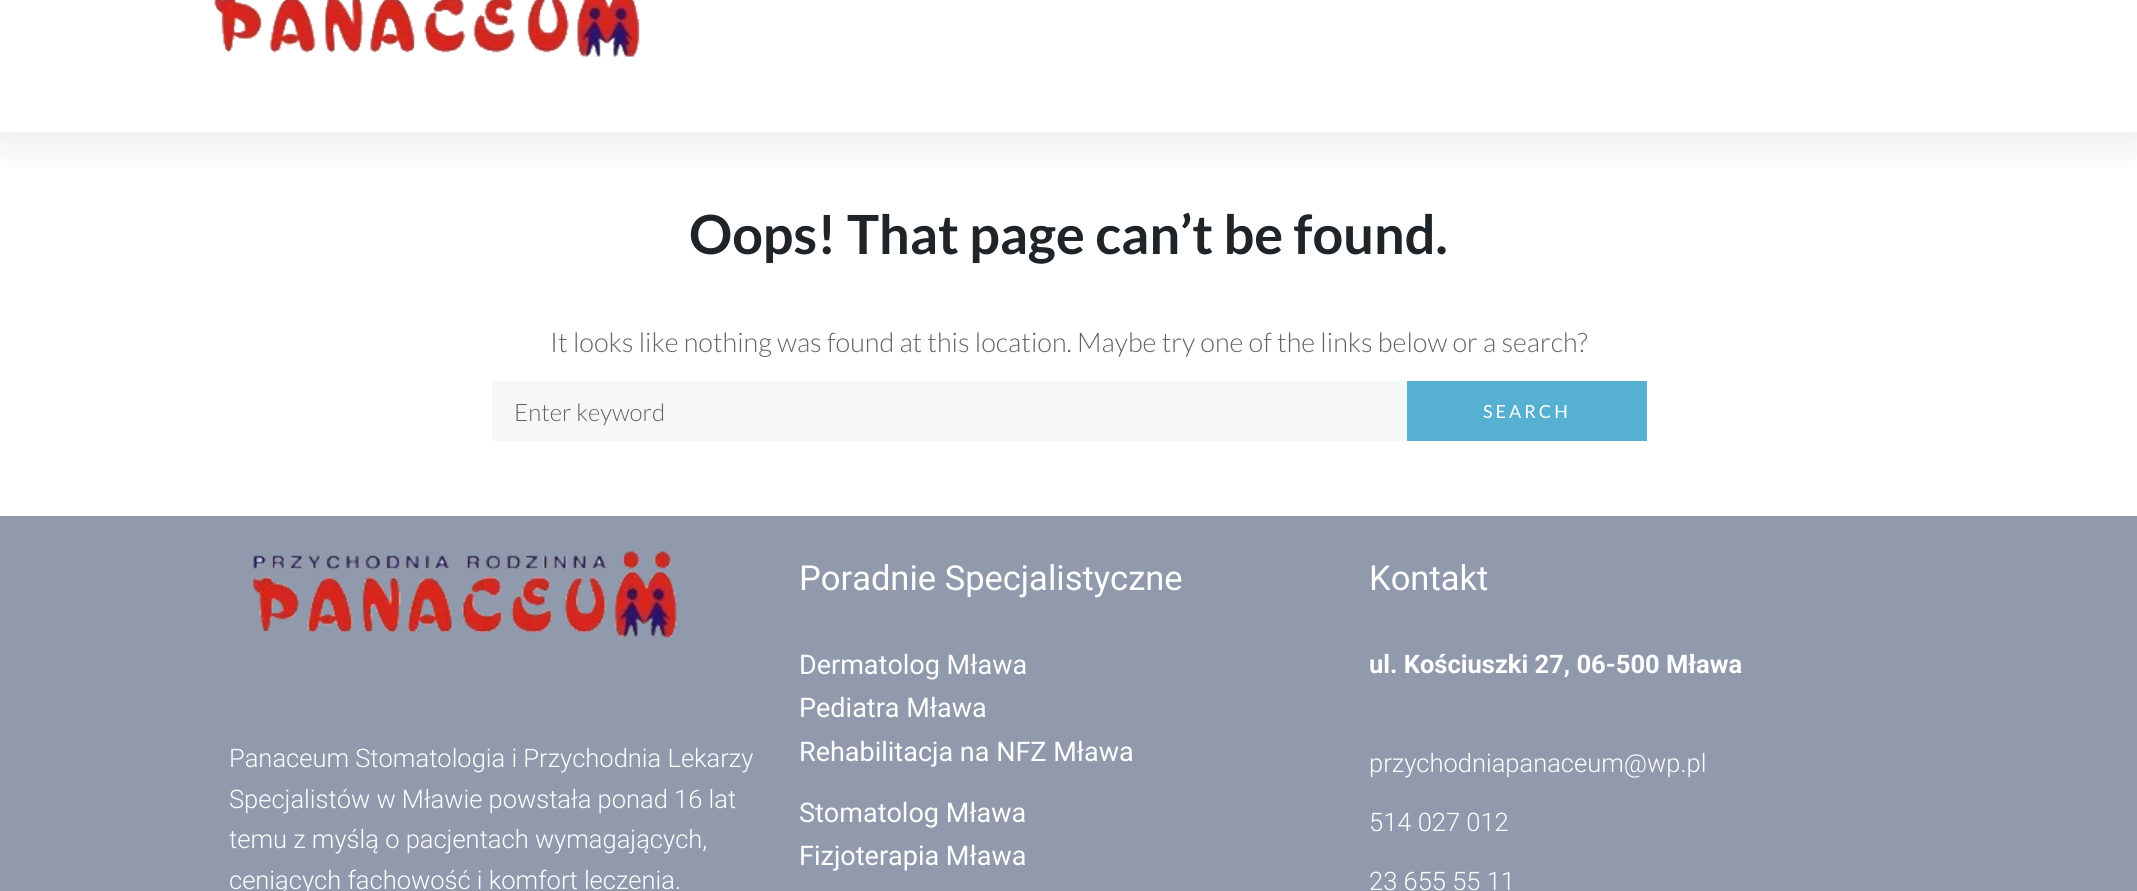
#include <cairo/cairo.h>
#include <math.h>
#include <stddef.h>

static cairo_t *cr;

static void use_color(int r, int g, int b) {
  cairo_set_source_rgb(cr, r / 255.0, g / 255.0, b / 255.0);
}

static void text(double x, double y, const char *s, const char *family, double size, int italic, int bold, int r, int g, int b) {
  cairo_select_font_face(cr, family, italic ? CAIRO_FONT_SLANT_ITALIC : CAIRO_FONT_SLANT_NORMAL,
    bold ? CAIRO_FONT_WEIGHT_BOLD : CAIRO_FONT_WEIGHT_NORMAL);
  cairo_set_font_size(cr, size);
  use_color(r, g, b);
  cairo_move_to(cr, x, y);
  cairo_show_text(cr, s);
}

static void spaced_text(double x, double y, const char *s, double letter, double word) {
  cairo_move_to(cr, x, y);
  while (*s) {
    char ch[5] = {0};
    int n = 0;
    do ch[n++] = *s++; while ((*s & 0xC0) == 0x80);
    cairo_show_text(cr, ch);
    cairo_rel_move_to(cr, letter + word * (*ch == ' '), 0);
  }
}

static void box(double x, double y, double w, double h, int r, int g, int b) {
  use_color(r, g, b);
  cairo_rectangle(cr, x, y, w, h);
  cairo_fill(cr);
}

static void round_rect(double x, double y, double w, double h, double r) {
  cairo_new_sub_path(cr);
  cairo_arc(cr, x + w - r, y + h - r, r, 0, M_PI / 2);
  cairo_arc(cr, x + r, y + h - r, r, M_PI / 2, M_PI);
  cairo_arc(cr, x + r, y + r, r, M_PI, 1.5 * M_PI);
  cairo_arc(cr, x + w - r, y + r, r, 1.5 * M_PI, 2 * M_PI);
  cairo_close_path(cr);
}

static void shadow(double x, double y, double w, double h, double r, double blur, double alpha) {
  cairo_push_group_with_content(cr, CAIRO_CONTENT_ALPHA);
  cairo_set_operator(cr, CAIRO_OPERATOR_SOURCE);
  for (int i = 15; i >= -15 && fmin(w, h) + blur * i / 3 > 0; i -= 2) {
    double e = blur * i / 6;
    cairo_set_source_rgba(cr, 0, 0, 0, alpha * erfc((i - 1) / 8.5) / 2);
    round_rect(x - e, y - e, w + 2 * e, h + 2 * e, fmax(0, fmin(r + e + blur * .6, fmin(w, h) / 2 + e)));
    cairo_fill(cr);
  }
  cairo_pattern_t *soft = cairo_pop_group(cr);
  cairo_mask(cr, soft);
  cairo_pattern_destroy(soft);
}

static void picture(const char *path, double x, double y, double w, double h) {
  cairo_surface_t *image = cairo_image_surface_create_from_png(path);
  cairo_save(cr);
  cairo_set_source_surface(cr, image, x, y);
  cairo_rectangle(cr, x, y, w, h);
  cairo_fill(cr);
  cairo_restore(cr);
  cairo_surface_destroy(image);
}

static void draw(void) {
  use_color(255, 255, 255);
  cairo_paint(cr);
  cairo_save(cr);
  cairo_rectangle(cr, 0, 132, 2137, 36);
  cairo_clip(cr);
  use_color(103, 122, 141);
  shadow(0, -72, 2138, 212, 0, 24, 0.17);
  cairo_restore(cr);
  picture("img_01.png", 214, 0, 426, 57);
  box(492, 381, 915, 60, 246, 247, 248);
  box(1407, 381, 240, 60, 86, 176, 210);
  box(0, 516, 2137, 375, 144, 154, 172);
  picture("img_02.png", 251, 551, 426, 87);
  text(689, 254, "Oops! That page can’t be found.", "Lato", 54, 0, 1, 30, 36, 40);
  text(550, 352, "It looks like nothing was found at this location. Maybe try one of the links below or a search?", "Lato Light", 27, 0, 0, 97, 98, 98);
  text(514, 421, "Enter keyword", "Lato Light", 24, 0, 0, 97, 98, 98);
  cairo_select_font_face(cr, "Lato", CAIRO_FONT_SLANT_NORMAL, CAIRO_FONT_WEIGHT_NORMAL);
  cairo_set_font_size(cr, 18);
  use_color(255, 255, 255);
  spaced_text(1483, 418, "SEARCH", 3, 0);
  text(229, 767, "Panaceum Stomatologia i Przychodnia Lekarzy", "Roboto Light", 25.5, 0, 0, 255, 255, 255);
  text(229, 808, "Specjalistów w Mławie powstała ponad 16 lat", "Roboto Light", 25.5, 0, 0, 255, 255, 255);
  text(229, 848, "temu z myślą o pacjentach wymagających,", "Roboto Light", 25.5, 0, 0, 255, 255, 255);
  text(229, 889, "ceniących fachowość i komfort leczenia.", "Roboto Light", 25.5, 0, 0, 255, 255, 255);
  text(799, 590, "Poradnie Specjalistyczne", "Roboto", 34.5, 0, 0, 255, 255, 255);
  text(799, 674, "Dermatolog Mława", "Roboto", 27, 0, 0, 255, 255, 255);
  text(799, 717, "Pediatra Mława", "Roboto", 27, 0, 0, 255, 255, 255);
  text(799, 761, "Rehabilitacja na NFZ Mława", "Roboto", 27, 0, 0, 255, 255, 255);
  text(799, 822, "Stomatolog Mława", "Roboto", 27, 0, 0, 255, 255, 255);
  text(799, 865, "Fizjoterapia Mława", "Roboto", 27, 0, 0, 255, 255, 255);
  text(1369, 590, "Kontakt", "Roboto", 34.5, 0, 0, 255, 255, 255);
  text(1369, 673, "ul. Kościuszki 27, 06-500 Mława", "Roboto", 25.5, 0, 1, 255, 255, 255);
  text(1369, 772, "przychodniapanaceum@wp.pl", "Roboto Light", 25.5, 0, 0, 255, 255, 255);
  text(1369, 831, "514 027 012", "Roboto Light", 25.5, 0, 0, 255, 255, 255);
  text(1369, 890, "23 655 55 11", "Roboto Light", 25.5, 0, 0, 255, 255, 255);
}

int main(void) {
  cairo_surface_t *surface = cairo_image_surface_create(CAIRO_FORMAT_RGB24, 2137, 891);
  cr = cairo_create(surface);
  cairo_font_options_t *options = cairo_font_options_create();
  cairo_font_options_set_hint_metrics(options, CAIRO_HINT_METRICS_OFF);
  cairo_font_options_set_hint_style(options, CAIRO_HINT_STYLE_NONE);
  cairo_set_font_options(cr, options);
  cairo_set_miter_limit(cr, 4);
  draw();
  cairo_surface_write_to_png(surface, "out.png");
  cairo_font_options_destroy(options);
  cairo_destroy(cr);
  cairo_surface_destroy(surface);
  return 0;
}
